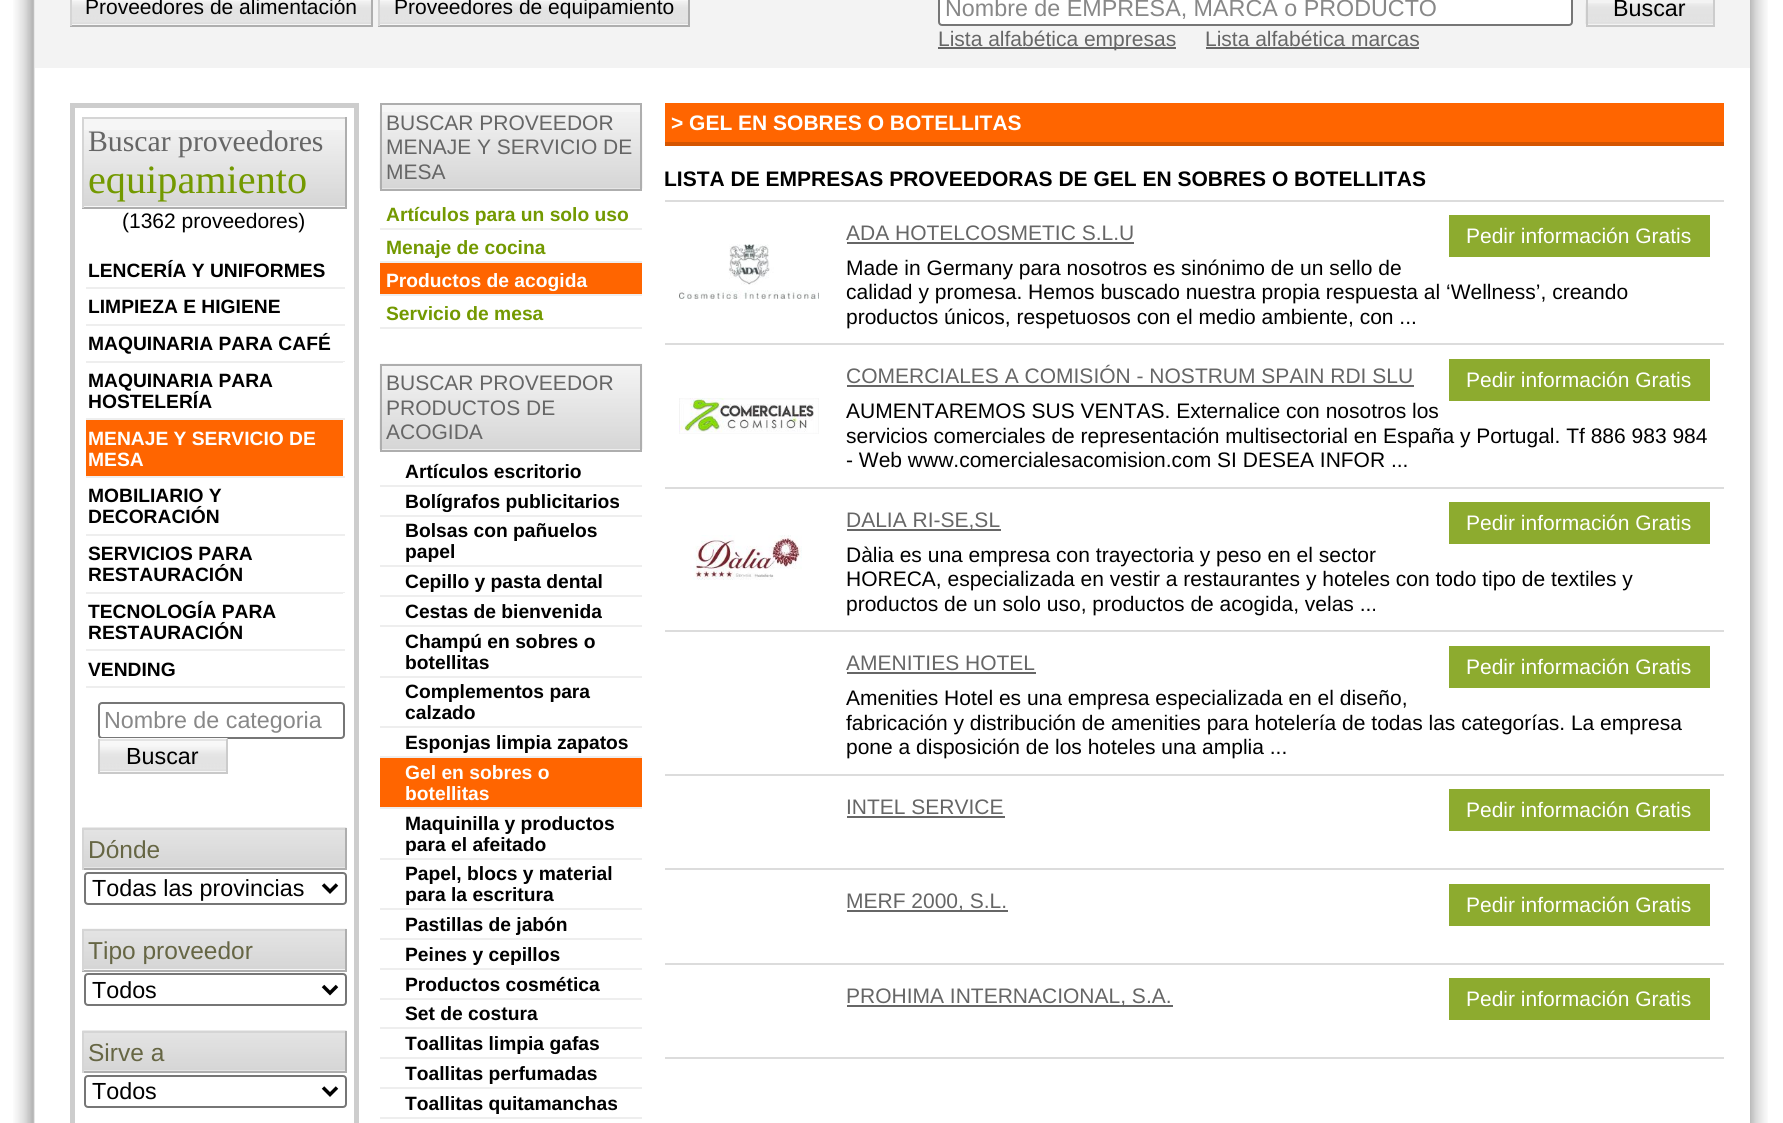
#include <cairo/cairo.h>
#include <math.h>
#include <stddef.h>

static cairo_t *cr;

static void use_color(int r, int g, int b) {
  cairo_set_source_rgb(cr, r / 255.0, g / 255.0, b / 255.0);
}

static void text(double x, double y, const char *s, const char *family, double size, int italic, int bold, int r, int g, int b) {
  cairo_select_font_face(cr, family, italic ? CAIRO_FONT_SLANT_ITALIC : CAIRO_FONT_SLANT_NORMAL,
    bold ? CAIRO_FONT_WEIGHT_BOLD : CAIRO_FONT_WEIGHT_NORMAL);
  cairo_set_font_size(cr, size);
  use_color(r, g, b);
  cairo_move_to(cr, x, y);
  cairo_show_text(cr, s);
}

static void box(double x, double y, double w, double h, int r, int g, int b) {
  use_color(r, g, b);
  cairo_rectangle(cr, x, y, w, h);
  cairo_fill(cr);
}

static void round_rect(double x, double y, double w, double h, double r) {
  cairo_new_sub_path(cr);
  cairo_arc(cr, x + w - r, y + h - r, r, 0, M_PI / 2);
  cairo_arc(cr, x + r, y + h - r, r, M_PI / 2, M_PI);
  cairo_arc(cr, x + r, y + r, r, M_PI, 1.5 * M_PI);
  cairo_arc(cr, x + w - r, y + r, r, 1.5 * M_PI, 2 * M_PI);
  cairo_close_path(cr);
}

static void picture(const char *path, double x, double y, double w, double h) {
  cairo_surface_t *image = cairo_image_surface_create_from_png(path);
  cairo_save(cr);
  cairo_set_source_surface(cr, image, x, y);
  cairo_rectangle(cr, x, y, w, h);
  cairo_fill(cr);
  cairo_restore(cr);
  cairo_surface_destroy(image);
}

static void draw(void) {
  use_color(255, 255, 255);
  cairo_paint(cr);
  picture("img_01.png", 13, 0, 1755, 1123);
  box(1747, 68, 3, 1055, 255, 255, 255);
  box(35, 0, 1715, 68, 243, 243, 243);
  box(72, 0, 299, 25, 246, 246, 246);
  box(371, 0, 2, 26, 174, 174, 174);
  box(70, 25, 303, 2, 174, 174, 174);
  box(70, 0, 2, 26, 213, 213, 213);
  box(380, 0, 308, 25, 246, 246, 246);
  box(688, 0, 2, 26, 174, 174, 174);
  box(378, 25, 312, 2, 174, 174, 174);
  box(378, 0, 2, 26, 213, 213, 213);
  picture("img_02.png", 72, 1, 299, 23);
  picture("img_03.png", 380, 1, 308, 23);
  use_color(255, 255, 255);
  round_rect(939, -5, 633, 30, 3);
  cairo_fill_preserve(cr);
  use_color(118, 118, 118);
  cairo_stroke(cr);
  picture("img_04.png", 1585, 3, 128, 21);
  box(1713, 0, 2, 26, 204, 204, 204);
  box(1586, 25, 129, 2, 201, 201, 201);
  box(1586, 0, 2, 26, 202, 202, 202);
  box(938, 47, 238, 2, 102, 102, 102);
  box(1206, 47, 213, 2, 102, 102, 102);
  cairo_rectangle(cr, 72.5, 105.5, 284, 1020);
  use_color(205, 205, 205);
  cairo_set_line_width(cr, 5);
  cairo_stroke(cr);
  box(84, 119, 261, 88, 246, 246, 246);
  picture("img_05.png", 84, 130, 261, 76);
  box(82, 117, 265, 2, 213, 213, 213);
  box(345, 117, 2, 91, 174, 174, 174);
  box(82, 207, 265, 2, 174, 174, 174);
  box(82, 117, 2, 91, 213, 213, 213);
  box(84, 287, 261, 2, 238, 238, 238);
  box(84, 287, 2, 2, 255, 255, 255);
  box(84, 324, 261, 2, 238, 238, 238);
  box(84, 324, 2, 2, 255, 255, 255);
  box(84, 361, 261, 2, 238, 238, 238);
  box(84, 361, 2, 1, 255, 255, 255);
  box(343, 362, 2, 1, 255, 255, 255);
  box(84, 418, 261, 2, 238, 238, 238);
  box(84, 362, 2, 58, 255, 255, 255);
  box(86, 420, 257, 56, 255, 101, 0);
  box(84, 476, 261, 2, 238, 238, 238);
  box(84, 476, 2, 2, 255, 255, 255);
  box(84, 534, 261, 2, 238, 238, 238);
  box(84, 534, 2, 2, 255, 255, 255);
  box(84, 592, 261, 2, 238, 238, 238);
  box(84, 592, 2, 1, 255, 255, 255);
  box(343, 593, 2, 1, 255, 255, 255);
  box(84, 649, 261, 2, 238, 238, 238);
  box(84, 593, 2, 58, 255, 255, 255);
  box(84, 686, 261, 2, 238, 238, 238);
  box(84, 686, 2, 2, 255, 255, 255);
  round_rect(99, 703, 245, 35, 3);
  use_color(118, 118, 118);
  cairo_set_line_width(cr, 2);
  cairo_stroke(cr);
  picture("img_06.png", 98, 738, 130, 34);
  box(98, 739, 130, 2, 228, 228, 228);
  box(226, 739, 2, 35, 204, 204, 204);
  box(98, 772, 130, 2, 201, 201, 201);
  box(98, 739, 2, 35, 202, 202, 202);
  box(84, 867, 261, 1, 246, 246, 246);
  picture("img_07.png", 82, 827, 265, 41);
  box(82, 828, 265, 2, 213, 213, 213);
  box(345, 828, 2, 42, 174, 174, 174);
  box(82, 868, 265, 2, 174, 174, 174);
  box(82, 828, 2, 42, 213, 213, 213);
  round_rect(85, 873, 261, 31, 3);
  use_color(118, 118, 118);
  cairo_stroke(cr);
  cairo_new_path(cr);
  cairo_move_to(cr, 323, 884.5);
  cairo_line_to(cr, 330, 891.5);
  cairo_line_to(cr, 337, 884.5);
  use_color(0, 0, 0);
  cairo_set_line_width(cr, 3.5);
  cairo_stroke(cr);
  box(84, 969, 261, 1, 246, 246, 246);
  picture("img_08.png", 82, 928, 265, 41);
  box(82, 929, 265, 2, 213, 213, 213);
  box(345, 929, 2, 42, 174, 174, 174);
  box(82, 970, 265, 2, 174, 174, 174);
  box(82, 929, 2, 42, 213, 213, 213);
  round_rect(85, 974, 261, 31, 3);
  use_color(118, 118, 118);
  cairo_set_line_width(cr, 2);
  cairo_stroke(cr);
  cairo_new_path(cr);
  cairo_move_to(cr, 323, 986);
  cairo_line_to(cr, 330, 993);
  cairo_line_to(cr, 337, 986);
  use_color(0, 0, 0);
  cairo_set_line_width(cr, 3.5);
  cairo_stroke(cr);
  box(84, 1070, 261, 1, 246, 246, 246);
  picture("img_07.png", 82, 1030, 265, 41);
  box(82, 1031, 265, 2, 213, 213, 213);
  box(345, 1031, 2, 42, 174, 174, 174);
  box(82, 1071, 265, 2, 174, 174, 174);
  box(82, 1031, 2, 42, 213, 213, 213);
  round_rect(85, 1076, 261, 31, 3);
  use_color(118, 118, 118);
  cairo_set_line_width(cr, 2);
  cairo_stroke(cr);
  cairo_new_path(cr);
  cairo_move_to(cr, 323, 1087.5);
  cairo_line_to(cr, 330, 1094.5);
  cairo_line_to(cr, 337, 1087.5);
  use_color(0, 0, 0);
  cairo_set_line_width(cr, 3.5);
  cairo_stroke(cr);
  box(382, 105, 258, 84, 246, 246, 246);
  picture("img_09.png", 379, 112, 264, 77);
  cairo_rectangle(cr, 381, 104, 260, 86);
  use_color(174, 174, 174);
  cairo_set_line_width(cr, 2);
  cairo_stroke(cr);
  box(380, 228, 262, 2, 238, 238, 238);
  box(380, 261, 262, 2, 238, 238, 238);
  box(380, 263, 262, 31, 255, 101, 0);
  box(380, 294, 262, 2, 238, 238, 238);
  box(380, 327, 262, 2, 238, 238, 238);
  box(382, 449, 258, 1, 246, 246, 246);
  picture("img_10.png", 379, 363, 264, 87);
  cairo_rectangle(cr, 381, 365, 260, 86);
  use_color(174, 174, 174);
  cairo_stroke(cr);
  box(380, 485, 262, 2, 238, 238, 238);
  box(380, 515, 262, 2, 238, 238, 238);
  box(380, 565, 262, 2, 238, 238, 238);
  box(380, 595, 262, 2, 238, 238, 238);
  box(380, 625, 262, 2, 238, 238, 238);
  box(380, 676, 262, 2, 238, 238, 238);
  box(380, 726, 262, 2, 238, 238, 238);
  box(380, 756, 262, 2, 238, 238, 238);
  box(380, 758, 262, 49, 255, 101, 0);
  box(380, 807, 262, 2, 238, 238, 238);
  box(380, 858, 262, 2, 238, 238, 238);
  box(380, 908, 262, 2, 238, 238, 238);
  box(380, 938, 262, 2, 238, 238, 238);
  box(380, 968, 262, 2, 238, 238, 238);
  box(380, 998, 262, 2, 238, 238, 238);
  box(380, 1027, 262, 2, 238, 238, 238);
  box(380, 1057, 262, 2, 238, 238, 238);
  box(380, 1087, 262, 2, 238, 238, 238);
  box(380, 1117, 262, 2, 238, 238, 238);
  box(665, 103, 1059, 39, 255, 101, 0);
  box(665, 142, 1059, 4, 213, 85, 0);
  box(665, 1057, 1059, 2, 220, 220, 220);
  box(665, 200, 1059, 2, 220, 220, 220);
  picture("img_11.png", 679, 244, 140, 55);
  box(847, 242, 287, 2, 102, 102, 102);
  box(1449, 215, 261, 42, 141, 171, 47);
  box(665, 343, 1059, 2, 220, 220, 220);
  picture("img_12.png", 679, 398, 140, 36);
  box(847, 385, 567, 2, 102, 102, 102);
  box(1449, 359, 261, 42, 141, 171, 47);
  box(665, 487, 1059, 2, 220, 220, 220);
  picture("img_13.png", 690, 535, 112, 45);
  box(847, 529, 154, 2, 102, 102, 102);
  box(1449, 502, 261, 42, 141, 171, 47);
  box(665, 630, 1059, 2, 220, 220, 220);
  box(847, 672, 189, 2, 102, 102, 102);
  box(1449, 646, 261, 42, 141, 171, 47);
  box(665, 774, 1059, 2, 220, 220, 220);
  box(847, 816, 158, 2, 102, 102, 102);
  box(1449, 789, 261, 42, 141, 171, 47);
  box(665, 868, 1059, 2, 220, 220, 220);
  box(847, 910, 161, 2, 102, 102, 102);
  box(1449, 884, 261, 42, 141, 171, 47);
  box(665, 963, 1059, 2, 220, 220, 220);
  box(847, 1005, 326, 2, 102, 102, 102);
  box(1449, 978, 261, 42, 141, 171, 47);
  text(85, 14, "Proveedores de alimentación", "Liberation Sans", 21, 0, 0, 0, 0, 0);
  text(394, 14, "Proveedores de equipamiento", "Liberation Sans", 21, 0, 0, 0, 0, 0);
  text(945, 16, "Nombre de EMPRESA, MARCA o PRODUCTO", "Liberation Sans", 23.3, 0, 0, 136, 136, 136);
  text(1613, 16, "Buscar", "Liberation Sans", 23.3, 0, 0, 0, 0, 0);
  text(938, 46, "Lista alfabética empresas", "Liberation Sans", 21, 0, 0, 102, 102, 102);
  text(1205, 46, "Lista alfabética marcas", "Liberation Sans", 21, 0, 0, 102, 102, 102);
  text(88, 151, "Buscar proveedores", "Liberation Serif", 29.75, 0, 0, 102, 102, 102);
  text(88, 193, "equipamiento", "Liberation Serif", 40.25, 0, 0, 115, 153, 0);
  text(122, 228, "(1362 proveedores)", "Liberation Sans", 21, 0, 0, 0, 0, 0);
  text(88, 277, "LENCERÍA Y UNIFORMES", "Liberation Sans", 19.25, 0, 1, 0, 0, 0);
  text(88, 313, "LIMPIEZA E HIGIENE", "Liberation Sans", 19.25, 0, 1, 0, 0, 0);
  text(88, 350, "MAQUINARIA PARA CAFÉ", "Liberation Sans", 19.25, 0, 1, 0, 0, 0);
  text(88, 387, "MAQUINARIA PARA", "Liberation Sans", 19.25, 0, 1, 0, 0, 0);
  text(88, 408, "HOSTELERÍA", "Liberation Sans", 19.25, 0, 1, 0, 0, 0);
  text(88, 445, "MENAJE Y SERVICIO DE", "Liberation Sans", 19.25, 0, 1, 255, 255, 255);
  text(88, 466, "MESA", "Liberation Sans", 19.25, 0, 1, 255, 255, 255);
  text(88, 502, "MOBILIARIO Y", "Liberation Sans", 19.25, 0, 1, 0, 0, 0);
  text(88, 523, "DECORACIÓN", "Liberation Sans", 19.25, 0, 1, 0, 0, 0);
  text(88, 560, "SERVICIOS PARA", "Liberation Sans", 19.25, 0, 1, 0, 0, 0);
  text(88, 581, "RESTAURACIÓN", "Liberation Sans", 19.25, 0, 1, 0, 0, 0);
  text(88, 618, "TECNOLOGÍA PARA", "Liberation Sans", 19.25, 0, 1, 0, 0, 0);
  text(88, 639, "RESTAURACIÓN", "Liberation Sans", 19.25, 0, 1, 0, 0, 0);
  text(88, 676, "VENDING", "Liberation Sans", 19.25, 0, 1, 0, 0, 0);
  text(104, 728, "Nombre de categoria", "Liberation Sans", 23.3, 0, 0, 136, 136, 136);
  text(126, 764, "Buscar", "Liberation Sans", 23.3, 0, 0, 0, 0, 0);
  text(88, 858, "Dónde", "Liberation Sans", 24.5, 0, 0, 102, 102, 68);
  text(92, 896, "Todas las provincias", "Liberation Sans", 23.3, 0, 0, 0, 0, 0);
  text(88, 959, "Tipo proveedor", "Liberation Sans", 24.5, 0, 0, 102, 102, 68);
  text(92, 998, "Todos", "Liberation Sans", 23.3, 0, 0, 0, 0, 0);
  text(88, 1061, "Sirve a", "Liberation Sans", 24.5, 0, 0, 102, 102, 68);
  text(92, 1099, "Todos", "Liberation Sans", 23.3, 0, 0, 0, 0, 0);
  text(386, 130, "BUSCAR PROVEEDOR", "Liberation Sans", 21, 0, 0, 102, 102, 102);
  text(386, 154, "MENAJE Y SERVICIO DE", "Liberation Sans", 21, 0, 0, 102, 102, 102);
  text(386, 179, "MESA", "Liberation Sans", 21, 0, 0, 102, 102, 102);
  text(386, 221, "Artículos para un solo uso", "Liberation Sans", 19.25, 0, 1, 115, 153, 0);
  text(386, 254, "Menaje de cocina", "Liberation Sans", 19.25, 0, 1, 115, 153, 0);
  text(386, 287, "Productos de acogida", "Liberation Sans", 19.25, 0, 1, 255, 255, 255);
  text(386, 320, "Servicio de mesa", "Liberation Sans", 19.25, 0, 1, 115, 153, 0);
  text(386, 390, "BUSCAR PROVEEDOR", "Liberation Sans", 21, 0, 0, 102, 102, 102);
  text(386, 415, "PRODUCTOS DE", "Liberation Sans", 21, 0, 0, 102, 102, 102);
  text(386, 439, "ACOGIDA", "Liberation Sans", 21, 0, 0, 102, 102, 102);
  text(405, 478, "Artículos escritorio", "Liberation Sans", 19.25, 0, 1, 0, 0, 0);
  text(405, 508, "Bolígrafos publicitarios", "Liberation Sans", 19.25, 0, 1, 0, 0, 0);
  text(405, 537, "Bolsas con pañuelos", "Liberation Sans", 19.25, 0, 1, 0, 0, 0);
  text(405, 558, "papel", "Liberation Sans", 19.25, 0, 1, 0, 0, 0);
  text(405, 588, "Cepillo y pasta dental", "Liberation Sans", 19.25, 0, 1, 0, 0, 0);
  text(405, 618, "Cestas de bienvenida", "Liberation Sans", 19.25, 0, 1, 0, 0, 0);
  text(405, 648, "Champú en sobres o", "Liberation Sans", 19.25, 0, 1, 0, 0, 0);
  text(405, 669, "botellitas", "Liberation Sans", 19.25, 0, 1, 0, 0, 0);
  text(405, 698, "Complementos para", "Liberation Sans", 19.25, 0, 1, 0, 0, 0);
  text(405, 719, "calzado", "Liberation Sans", 19.25, 0, 1, 0, 0, 0);
  text(405, 749, "Esponjas limpia zapatos", "Liberation Sans", 19.25, 0, 1, 0, 0, 0);
  text(405, 779, "Gel en sobres o", "Liberation Sans", 19.25, 0, 1, 255, 255, 255);
  text(405, 800, "botellitas", "Liberation Sans", 19.25, 0, 1, 255, 255, 255);
  text(405, 830, "Maquinilla y productos", "Liberation Sans", 19.25, 0, 1, 0, 0, 0);
  text(405, 851, "para el afeitado", "Liberation Sans", 19.25, 0, 1, 0, 0, 0);
  text(405, 880, "Papel, blocs y material", "Liberation Sans", 19.25, 0, 1, 0, 0, 0);
  text(405, 901, "para la escritura", "Liberation Sans", 19.25, 0, 1, 0, 0, 0);
  text(405, 931, "Pastillas de jabón", "Liberation Sans", 19.25, 0, 1, 0, 0, 0);
  text(405, 961, "Peines y cepillos", "Liberation Sans", 19.25, 0, 1, 0, 0, 0);
  text(405, 991, "Productos cosmética", "Liberation Sans", 19.25, 0, 1, 0, 0, 0);
  text(405, 1020, "Set de costura", "Liberation Sans", 19.25, 0, 1, 0, 0, 0);
  text(405, 1050, "Toallitas limpia gafas", "Liberation Sans", 19.25, 0, 1, 0, 0, 0);
  text(405, 1080, "Toallitas perfumadas", "Liberation Sans", 19.25, 0, 1, 0, 0, 0);
  text(405, 1110, "Toallitas quitamanchas", "Liberation Sans", 19.25, 0, 1, 0, 0, 0);
  text(671, 130, "> GEL EN SOBRES O BOTELLITAS", "Liberation Sans", 21, 0, 1, 255, 255, 255);
  text(664, 186, "LISTA DE EMPRESAS PROVEEDORAS DE GEL EN SOBRES O BOTELLITAS", "Liberation Sans", 21, 0, 1, 0, 0, 0);
  text(846, 240, "ADA HOTELCOSMETIC S.L.U", "Liberation Sans", 21, 0, 0, 102, 102, 102);
  text(1466, 243, "Pedir información Gratis", "Liberation Sans", 21, 0, 0, 255, 255, 255);
  text(846, 275, "Made in Germany para nosotros es sinónimo de un sello de", "Liberation Sans", 21, 0, 0, 0, 0, 0);
  text(846, 299, "calidad y promesa. Hemos buscado nuestra propia respuesta al ‘Wellness’, creando", "Liberation Sans", 21, 0, 0, 0, 0, 0);
  text(846, 324, "productos únicos, respetuosos con el medio ambiente, con ...", "Liberation Sans", 21, 0, 0, 0, 0, 0);
  text(846, 383, "COMERCIALES A COMISIÓN - NOSTRUM SPAIN RDI SLU", "Liberation Sans", 21, 0, 0, 102, 102, 102);
  text(1466, 387, "Pedir información Gratis", "Liberation Sans", 21, 0, 0, 255, 255, 255);
  text(846, 418, "AUMENTAREMOS SUS VENTAS. Externalice con nosotros los", "Liberation Sans", 21, 0, 0, 0, 0, 0);
  text(846, 443, "servicios comerciales de representación multisectorial en España y Portugal. Tf 886 983 984", "Liberation Sans", 21, 0, 0, 0, 0, 0);
  text(846, 467, "- Web www.comercialesacomision.com SI DESEA INFOR ...", "Liberation Sans", 21, 0, 0, 0, 0, 0);
  text(846, 527, "DALIA RI-SE,SL", "Liberation Sans", 21, 0, 0, 102, 102, 102);
  text(1466, 530, "Pedir información Gratis", "Liberation Sans", 21, 0, 0, 255, 255, 255);
  text(846, 562, "Dàlia es una empresa con trayectoria y peso en el sector", "Liberation Sans", 21, 0, 0, 0, 0, 0);
  text(846, 586, "HORECA, especializada en vestir a restaurantes y hoteles con todo tipo de textiles y", "Liberation Sans", 21, 0, 0, 0, 0, 0);
  text(846, 611, "productos de un solo uso, productos de acogida, velas ...", "Liberation Sans", 21, 0, 0, 0, 0, 0);
  text(846, 670, "AMENITIES HOTEL", "Liberation Sans", 21, 0, 0, 102, 102, 102);
  text(1466, 674, "Pedir información Gratis", "Liberation Sans", 21, 0, 0, 255, 255, 255);
  text(846, 705, "Amenities Hotel es una empresa especializada en el diseño,", "Liberation Sans", 21, 0, 0, 0, 0, 0);
  text(846, 730, "fabricación y distribución de amenities para hotelería de todas las categorías. La empresa", "Liberation Sans", 21, 0, 0, 0, 0, 0);
  text(846, 754, "pone a disposición de los hoteles una amplia ...", "Liberation Sans", 21, 0, 0, 0, 0, 0);
  text(846, 814, "INTEL SERVICE", "Liberation Sans", 21, 0, 0, 102, 102, 102);
  text(1466, 817, "Pedir información Gratis", "Liberation Sans", 21, 0, 0, 255, 255, 255);
  text(846, 908, "MERF 2000, S.L.", "Liberation Sans", 21, 0, 0, 102, 102, 102);
  text(1466, 912, "Pedir información Gratis", "Liberation Sans", 21, 0, 0, 255, 255, 255);
  text(846, 1003, "PROHIMA INTERNACIONAL, S.A.", "Liberation Sans", 21, 0, 0, 102, 102, 102);
  text(1466, 1006, "Pedir información Gratis", "Liberation Sans", 21, 0, 0, 255, 255, 255);
}

int main(void) {
  cairo_surface_t *surface = cairo_image_surface_create(CAIRO_FORMAT_RGB24, 1783, 1123);
  cr = cairo_create(surface);
  cairo_font_options_t *options = cairo_font_options_create();
  cairo_font_options_set_hint_metrics(options, CAIRO_HINT_METRICS_OFF);
  cairo_font_options_set_hint_style(options, CAIRO_HINT_STYLE_NONE);
  cairo_set_font_options(cr, options);
  cairo_set_miter_limit(cr, 4);
  draw();
  cairo_surface_write_to_png(surface, "out.png");
  cairo_font_options_destroy(options);
  cairo_destroy(cr);
  cairo_surface_destroy(surface);
  return 0;
}
